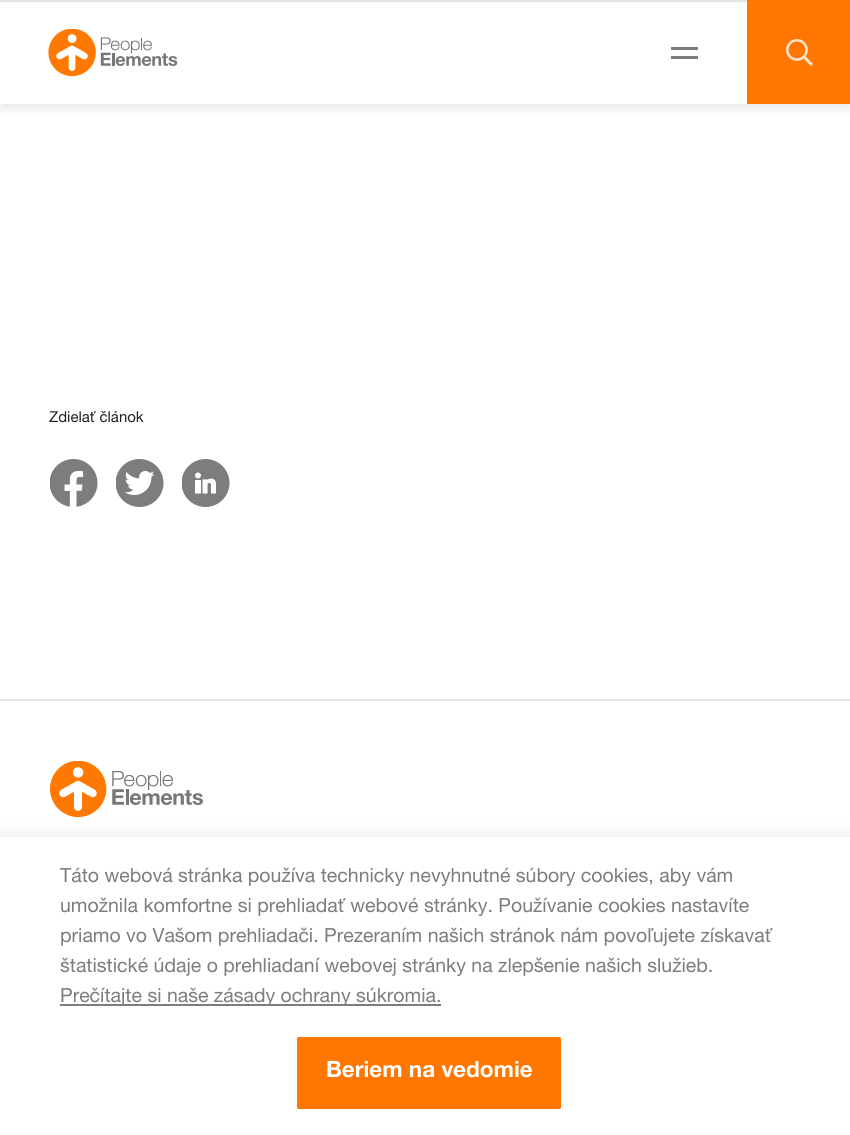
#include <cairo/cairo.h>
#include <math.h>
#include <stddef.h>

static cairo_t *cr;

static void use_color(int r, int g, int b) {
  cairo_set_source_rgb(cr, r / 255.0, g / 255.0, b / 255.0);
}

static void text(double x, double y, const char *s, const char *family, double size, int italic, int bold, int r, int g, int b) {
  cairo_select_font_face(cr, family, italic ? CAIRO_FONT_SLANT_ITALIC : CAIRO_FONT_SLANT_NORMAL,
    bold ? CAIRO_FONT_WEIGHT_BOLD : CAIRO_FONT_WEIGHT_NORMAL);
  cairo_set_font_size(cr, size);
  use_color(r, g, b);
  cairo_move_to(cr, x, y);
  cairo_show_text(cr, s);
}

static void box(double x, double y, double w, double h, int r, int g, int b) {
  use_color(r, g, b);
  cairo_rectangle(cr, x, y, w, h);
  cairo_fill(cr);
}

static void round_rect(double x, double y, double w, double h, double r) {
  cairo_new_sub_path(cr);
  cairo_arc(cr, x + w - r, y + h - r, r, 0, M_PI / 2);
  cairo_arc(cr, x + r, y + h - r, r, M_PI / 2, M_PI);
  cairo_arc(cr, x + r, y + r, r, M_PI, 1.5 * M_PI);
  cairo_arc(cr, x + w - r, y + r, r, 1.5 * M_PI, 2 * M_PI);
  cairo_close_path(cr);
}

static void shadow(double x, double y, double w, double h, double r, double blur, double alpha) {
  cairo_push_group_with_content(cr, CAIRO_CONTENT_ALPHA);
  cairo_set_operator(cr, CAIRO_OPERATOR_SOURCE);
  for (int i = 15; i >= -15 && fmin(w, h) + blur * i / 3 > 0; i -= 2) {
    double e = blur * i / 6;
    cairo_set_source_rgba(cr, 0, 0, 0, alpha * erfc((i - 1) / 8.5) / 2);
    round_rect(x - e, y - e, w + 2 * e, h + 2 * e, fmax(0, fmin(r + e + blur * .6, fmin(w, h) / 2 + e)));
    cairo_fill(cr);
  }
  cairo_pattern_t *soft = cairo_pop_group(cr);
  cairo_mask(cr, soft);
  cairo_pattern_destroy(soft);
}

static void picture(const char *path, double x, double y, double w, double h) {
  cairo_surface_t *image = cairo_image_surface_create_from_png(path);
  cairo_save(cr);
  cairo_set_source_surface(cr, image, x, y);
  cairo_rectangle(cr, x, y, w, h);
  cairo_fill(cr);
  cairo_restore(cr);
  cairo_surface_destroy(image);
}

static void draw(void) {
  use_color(255, 255, 255);
  cairo_paint(cr);
  use_color(0, 0, 0);
  shadow(0, 8, 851, 102, 0, 4.5, 0.08);
  box(0, 3, 747, 101, 255, 255, 255);
  picture("img_01.png", 48, 29, 130, 48);
  box(671, 47, 27, 3, 125, 125, 125);
  box(671, 56, 27, 3, 125, 125, 125);
  box(747, 0, 103, 104, 255, 119, 0);
  picture("img_02.png", 786, 39, 27, 27);
  box(0, 0, 747, 2, 228, 228, 228);
  picture("img_03.png", 50, 459, 48, 48);
  picture("img_04.png", 116, 459, 48, 48);
  picture("img_05.png", 182, 459, 48, 48);
  box(0, 699, 850, 2, 229, 229, 229);
  picture("img_06.png", 50, 761, 153, 57);
  use_color(172, 171, 171);
  shadow(0, 836, 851, 298, 0, 7.5, 0.3);
  box(0, 837, 850, 298, 255, 255, 255);
  box(60, 1004, 381, 2, 125, 125, 125);
  use_color(255, 119, 0);
  round_rect(297, 1037, 264, 72, 1.5);
  cairo_fill(cr);
  text(49, 422, "Zdielať článok", "Helvetica Neue", 15, 0, 0, 35, 31, 32);
  text(60, 882, "Táto webová stránka používa technicky nevyhnutné súbory cookies, aby vám", "Helvetica Neue", 19.5, 0, 0, 125, 125, 125);
  text(60, 912, "umožnila komfortne si prehliadať webové stránky. Používanie cookies nastavíte", "Helvetica Neue", 19.5, 0, 0, 125, 125, 125);
  text(60, 942, "priamo vo Vašom prehliadači. Prezeraním našich stránok nám povoľujete získavať", "Helvetica Neue", 19.5, 0, 0, 125, 125, 125);
  text(60, 972, "štatistické údaje o prehliadaní webovej stránky na zlepšenie našich služieb.", "Helvetica Neue", 19.5, 0, 0, 125, 125, 125);
  text(60, 1002, "Prečítajte si naše zásady ochrany súkromia.", "Helvetica Neue", 19.5, 0, 0, 125, 125, 125);
  text(326, 1077, "Beriem na vedomie", "Helvetica Neue", 22.5, 0, 1, 255, 255, 255);
}

int main(void) {
  cairo_surface_t *surface = cairo_image_surface_create(CAIRO_FORMAT_RGB24, 850, 1135);
  cr = cairo_create(surface);
  cairo_font_options_t *options = cairo_font_options_create();
  cairo_font_options_set_hint_metrics(options, CAIRO_HINT_METRICS_OFF);
  cairo_font_options_set_hint_style(options, CAIRO_HINT_STYLE_NONE);
  cairo_set_font_options(cr, options);
  cairo_set_miter_limit(cr, 4);
  draw();
  cairo_surface_write_to_png(surface, "out.png");
  cairo_font_options_destroy(options);
  cairo_destroy(cr);
  cairo_surface_destroy(surface);
  return 0;
}
